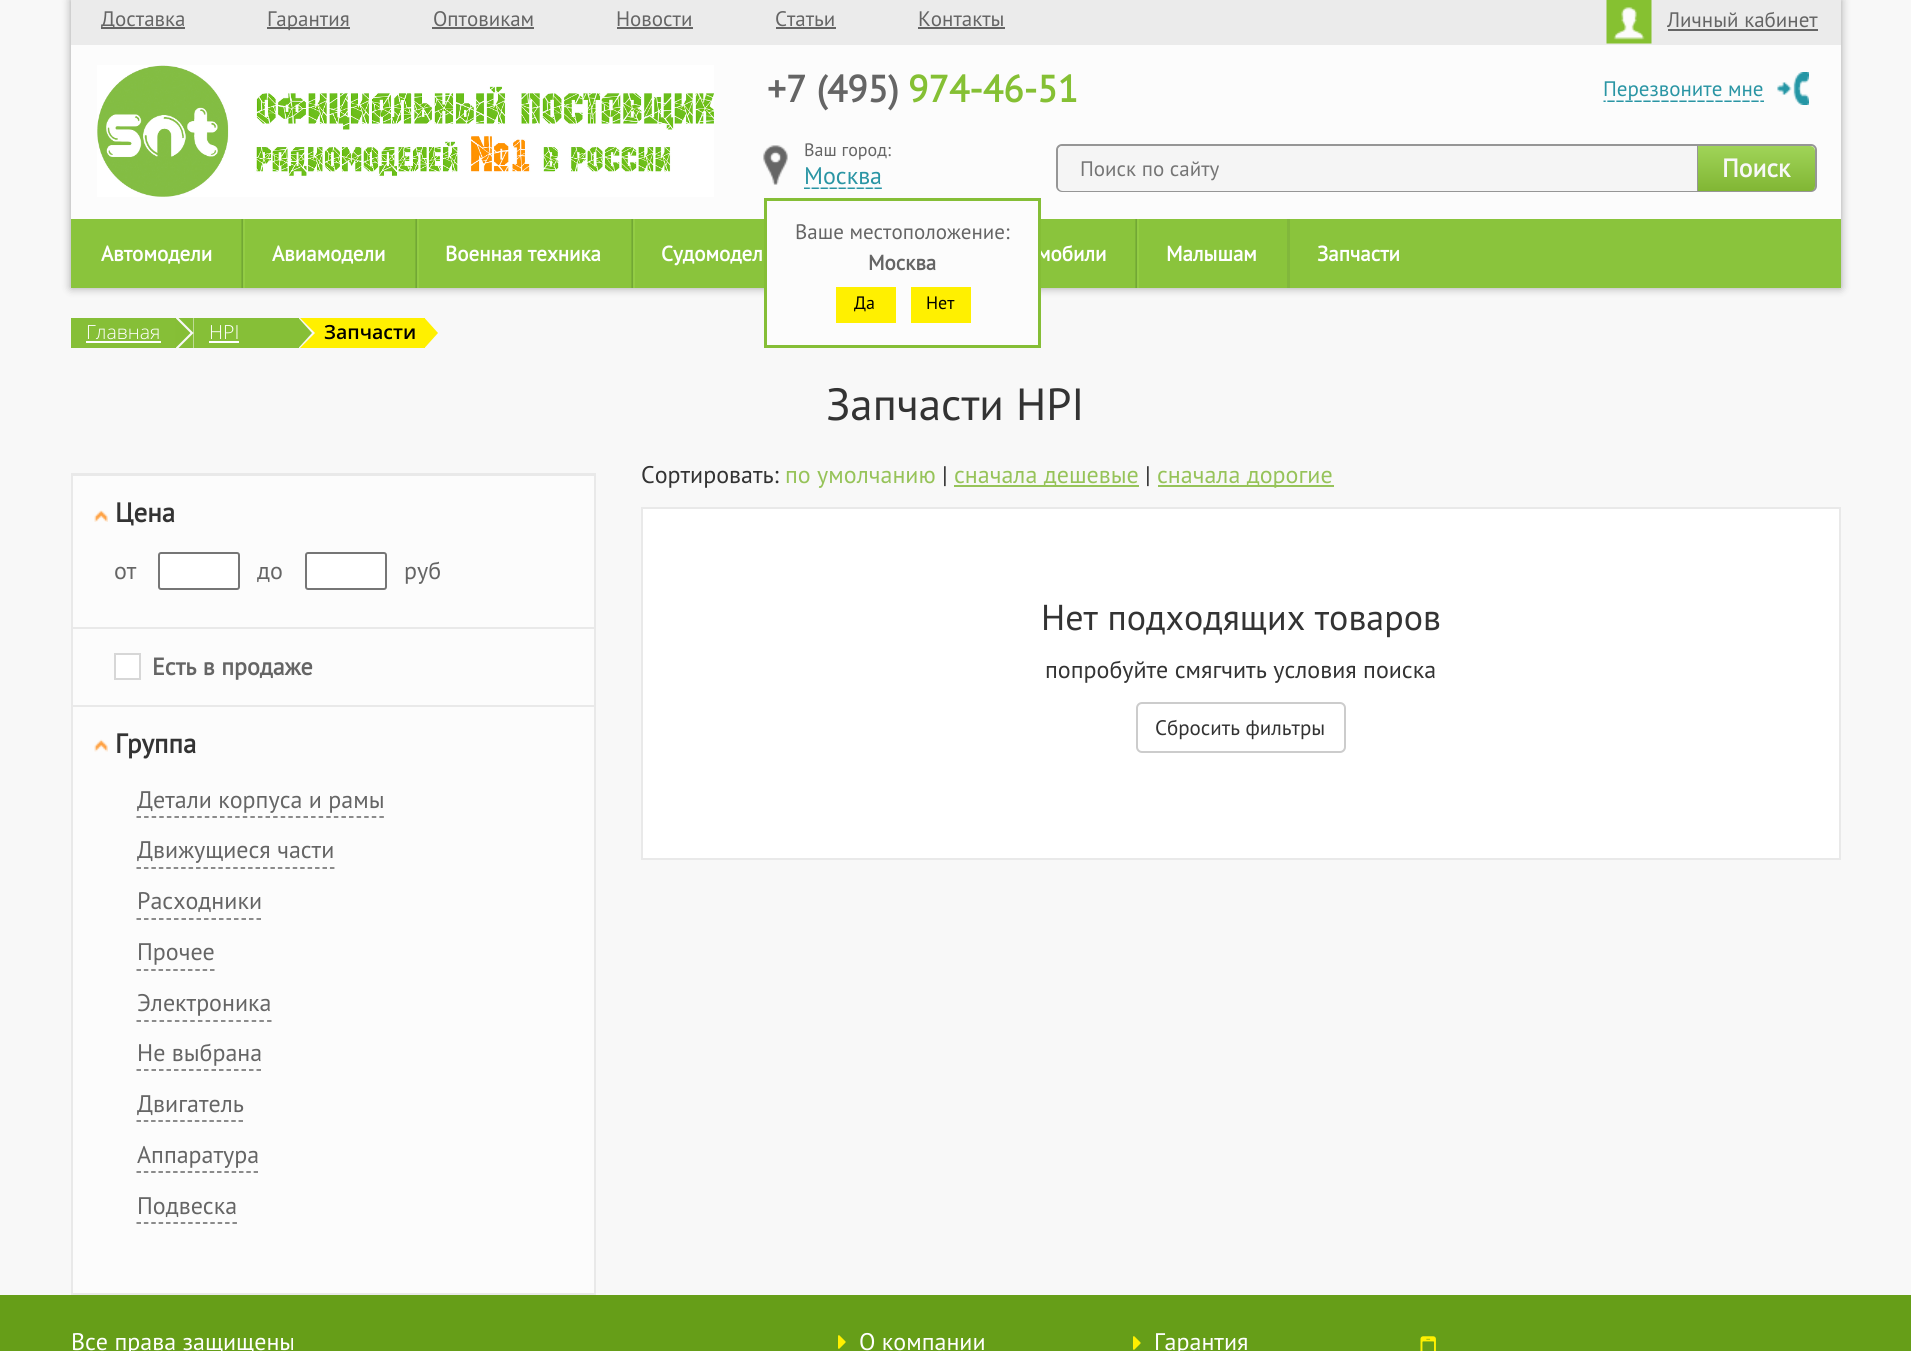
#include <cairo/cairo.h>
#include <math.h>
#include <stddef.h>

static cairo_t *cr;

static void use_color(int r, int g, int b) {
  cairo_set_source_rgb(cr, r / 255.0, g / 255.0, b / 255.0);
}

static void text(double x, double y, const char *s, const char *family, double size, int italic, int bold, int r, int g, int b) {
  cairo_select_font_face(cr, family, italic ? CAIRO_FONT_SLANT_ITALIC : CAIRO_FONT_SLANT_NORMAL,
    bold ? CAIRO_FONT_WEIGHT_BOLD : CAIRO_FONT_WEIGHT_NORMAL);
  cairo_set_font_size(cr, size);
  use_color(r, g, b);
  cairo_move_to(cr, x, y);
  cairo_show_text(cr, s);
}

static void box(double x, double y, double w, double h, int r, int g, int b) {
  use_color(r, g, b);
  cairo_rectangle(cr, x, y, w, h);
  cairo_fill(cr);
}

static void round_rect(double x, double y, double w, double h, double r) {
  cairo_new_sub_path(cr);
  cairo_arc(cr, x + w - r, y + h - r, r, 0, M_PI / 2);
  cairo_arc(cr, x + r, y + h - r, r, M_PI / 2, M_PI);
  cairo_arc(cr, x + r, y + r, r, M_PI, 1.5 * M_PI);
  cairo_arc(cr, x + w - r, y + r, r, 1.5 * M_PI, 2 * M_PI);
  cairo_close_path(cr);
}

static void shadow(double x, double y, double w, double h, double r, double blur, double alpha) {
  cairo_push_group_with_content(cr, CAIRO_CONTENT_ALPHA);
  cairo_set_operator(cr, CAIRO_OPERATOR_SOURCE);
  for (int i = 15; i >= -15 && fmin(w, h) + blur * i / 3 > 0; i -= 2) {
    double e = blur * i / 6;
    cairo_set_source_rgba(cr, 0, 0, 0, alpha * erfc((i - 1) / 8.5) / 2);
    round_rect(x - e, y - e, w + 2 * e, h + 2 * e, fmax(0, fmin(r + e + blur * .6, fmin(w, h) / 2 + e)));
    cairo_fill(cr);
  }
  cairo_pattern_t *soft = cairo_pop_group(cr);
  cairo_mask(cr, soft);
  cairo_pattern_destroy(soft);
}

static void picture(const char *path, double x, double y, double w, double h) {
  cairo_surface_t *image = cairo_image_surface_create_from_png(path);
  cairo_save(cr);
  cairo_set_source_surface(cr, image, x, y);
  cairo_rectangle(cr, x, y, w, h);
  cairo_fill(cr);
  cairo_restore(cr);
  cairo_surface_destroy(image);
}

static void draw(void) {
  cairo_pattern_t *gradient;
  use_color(248, 248, 248);
  cairo_paint(cr);
  use_color(0, 0, 0);
  shadow(71, 0, 1770, 288, 0, 4.5, 0.35);
  box(71, 45, 1770, 174, 252, 252, 252);
  box(71, 0, 1770, 45, 235, 235, 235);
  box(101, 27, 84, 2, 101, 101, 101);
  box(267, 27, 83, 2, 101, 101, 101);
  box(432, 27, 102, 2, 101, 101, 101);
  box(617, 27, 76, 2, 101, 101, 101);
  box(776, 27, 60, 2, 101, 101, 101);
  box(918, 27, 87, 2, 101, 101, 101);
  picture("img_01.png", 1606, 0, 46, 44);
  box(1668, 29, 150, 2, 101, 101, 101);
  picture("img_02.png", 97, 65, 617, 132);
  picture("img_03.png", 1777, 72, 32, 33);
  picture("img_04.png", 1603, 100, 161, 2);
  picture("img_05.png", 763, 145, 25, 40);
  picture("img_06.png", 804, 187, 78, 2);
  box(71, 219, 1770, 69, 138, 196, 60);
  box(767, 219, 271, 126, 252, 252, 252);
  round_rect(1057, 145, 759, 46, 5);
  use_color(150, 150, 150);
  cairo_stroke(cr);
  use_color(245, 245, 245);
  cairo_new_path(cr);
  cairo_move_to(cr, 1063, 146);
  cairo_line_to(cr, 1698, 146);
  cairo_line_to(cr, 1698, 191);
  cairo_line_to(cr, 1063, 191);
  cairo_curve_to(cr, 1060, 191, 1058, 189, 1058, 186);
  cairo_line_to(cr, 1058, 151);
  cairo_curve_to(cr, 1058, 148, 1060, 146, 1063, 146);
  cairo_close_path(cr);
  cairo_fill(cr);
  box(1697, 146, 1, 45, 150, 150, 150);
  gradient = cairo_pattern_create_linear(1757, 191, 1757, 146);
  cairo_pattern_add_color_stop_rgba(gradient, 0, 0.506, 0.714, 0.204, 1);
  cairo_pattern_add_color_stop_rgba(gradient, 1, 0.627, 0.831, 0.345, 1);
  cairo_set_source(cr, gradient);
  cairo_pattern_destroy(gradient);
  cairo_new_path(cr);
  cairo_move_to(cr, 1698, 146);
  cairo_line_to(cr, 1810, 146);
  cairo_curve_to(cr, 1813, 146, 1815, 148, 1815, 151);
  cairo_line_to(cr, 1815, 186);
  cairo_curve_to(cr, 1815, 189, 1813, 191, 1810, 191);
  cairo_line_to(cr, 1698, 191);
  cairo_close_path(cr);
  cairo_fill(cr);
  picture("img_07.png", 241, 219, 4, 69);
  picture("img_07.png", 415, 219, 4, 69);
  picture("img_07.png", 631, 219, 4, 69);
  picture("img_07.png", 1135, 219, 4, 69);
  box(1287, 219, 3, 69, 129, 183, 60);
  box(71, 318, 105, 30, 134, 191, 55);
  use_color(133, 190, 54);
  cairo_new_path(cr);
  cairo_move_to(cr, 175.5, 348);
  cairo_line_to(cr, 175.5, 318);
  cairo_line_to(cr, 190.5, 333);
  cairo_close_path(cr);
  cairo_fill(cr);
  cairo_new_path(cr);
  cairo_move_to(cr, 178.5, 318);
  cairo_line_to(cr, 193.5, 318);
  cairo_line_to(cr, 193.5, 333);
  cairo_close_path(cr);
  cairo_move_to(cr, 193.5, 348);
  cairo_line_to(cr, 178.5, 348);
  cairo_line_to(cr, 193.5, 333);
  cairo_close_path(cr);
  cairo_fill(cr);
  box(194, 318, 105, 30, 134, 191, 55);
  cairo_new_path(cr);
  cairo_move_to(cr, 298.5, 348);
  cairo_line_to(cr, 298.5, 318);
  cairo_line_to(cr, 312, 333);
  cairo_close_path(cr);
  cairo_fill(cr);
  box(86, 341, 75, 2, 255, 255, 255);
  box(209, 341, 30, 2, 255, 255, 255);
  use_color(255, 240, 0);
  cairo_new_path(cr);
  cairo_move_to(cr, 300, 318);
  cairo_line_to(cr, 315, 318);
  cairo_line_to(cr, 315, 333);
  cairo_close_path(cr);
  cairo_move_to(cr, 315, 348);
  cairo_line_to(cr, 300, 348);
  cairo_line_to(cr, 315, 333);
  cairo_close_path(cr);
  cairo_fill(cr);
  box(315, 318, 110, 30, 255, 240, 0);
  cairo_new_path(cr);
  cairo_move_to(cr, 424.5, 348);
  cairo_line_to(cr, 424.5, 318);
  cairo_line_to(cr, 438, 333);
  cairo_close_path(cr);
  cairo_fill(cr);
  box(73, 476, 521, 817, 252, 252, 252);
  cairo_rectangle(cr, 72, 474, 523, 820);
  use_color(233, 233, 233);
  cairo_stroke(cr);
  box(72, 475, 522, 1, 233, 233, 233);
  picture("img_08.png", 94, 510, 14, 12);
  use_color(255, 255, 255);
  round_rect(159, 553, 80, 36, 2);
  cairo_fill_preserve(cr);
  use_color(118, 118, 118);
  cairo_stroke(cr);
  use_color(255, 255, 255);
  round_rect(306, 553, 80, 36, 2);
  cairo_fill_preserve(cr);
  use_color(118, 118, 118);
  cairo_stroke(cr);
  box(72, 627, 522, 2, 233, 233, 233);
  use_color(255, 255, 255);
  cairo_rectangle(cr, 115, 654, 25, 25);
  cairo_fill_preserve(cr);
  use_color(215, 215, 215);
  cairo_stroke(cr);
  box(72, 705, 522, 2, 233, 233, 233);
  picture("img_09.png", 94, 739, 14, 13);
  cairo_new_path(cr);
  cairo_move_to(cr, 136.5, 817);
  cairo_line_to(cr, 384, 817);
  use_color(102, 102, 102);
  cairo_set_line_width(cr, 1.5);
  cairo_set_dash(cr, (double[]){4.5, 3.09}, 2, 0);
  cairo_stroke(cr);
  cairo_new_path(cr);
  cairo_move_to(cr, 136.5, 868);
  cairo_line_to(cr, 334.5, 868);
  cairo_set_dash(cr, (double[]){4.5, 2.94}, 2, 0);
  cairo_stroke(cr);
  cairo_new_path(cr);
  cairo_move_to(cr, 136.5, 919);
  cairo_line_to(cr, 261, 919);
  cairo_set_dash(cr, (double[]){4.5, 3}, 2, 0);
  cairo_stroke(cr);
  cairo_new_path(cr);
  cairo_move_to(cr, 136.5, 970);
  cairo_line_to(cr, 214.5, 970);
  cairo_set_dash(cr, (double[]){4.5, 2.85}, 2, 0);
  cairo_stroke(cr);
  cairo_new_path(cr);
  cairo_move_to(cr, 136.5, 1021);
  cairo_line_to(cr, 271.5, 1021);
  cairo_set_dash(cr, (double[]){4.5, 3.18}, 2, 0);
  cairo_stroke(cr);
  cairo_new_path(cr);
  cairo_move_to(cr, 136.5, 1070);
  cairo_line_to(cr, 261, 1070);
  cairo_set_dash(cr, (double[]){4.5, 3}, 2, 0);
  cairo_stroke(cr);
  cairo_new_path(cr);
  cairo_move_to(cr, 136.5, 1121);
  cairo_line_to(cr, 243, 1121);
  cairo_set_dash(cr, (double[]){4.5, 2.79}, 2, 0);
  cairo_stroke(cr);
  cairo_new_path(cr);
  cairo_move_to(cr, 136.5, 1172);
  cairo_line_to(cr, 258, 1172);
  cairo_set_dash(cr, (double[]){4.5, 2.82}, 2, 0);
  cairo_stroke(cr);
  cairo_new_path(cr);
  cairo_move_to(cr, 136.5, 1223);
  cairo_line_to(cr, 237, 1223);
  cairo_set_dash(cr, (double[]){4.5, 2.88}, 2, 0);
  cairo_stroke(cr);
  box(954, 485, 185, 2, 150, 195, 89);
  box(1158, 485, 176, 2, 150, 195, 89);
  use_color(255, 255, 255);
  cairo_rectangle(cr, 642, 508, 1198, 351);
  cairo_fill_preserve(cr);
  use_color(233, 233, 233);
  cairo_set_line_width(cr, 2);
  cairo_set_dash(cr, NULL, 0, 0);
  cairo_stroke(cr);
  round_rect(1137, 703, 208, 49, 5);
  use_color(204, 204, 204);
  cairo_stroke(cr);
  box(0, 1295, 1911, 56, 102, 158, 24);
  picture("img_10.png", 838, 1335, 8, 14);
  picture("img_11.png", 1133, 1336, 8, 14);
  picture("img_12.png", 1420, 1336, 16, 15);
  text(101, 26, "Доставка", "PT Sans", 21, 0, 0, 101, 101, 101);
  text(267, 26, "Гарантия", "PT Sans", 21, 0, 0, 101, 101, 101);
  text(433, 26, "Оптовикам", "PT Sans", 21, 0, 0, 101, 101, 101);
  text(616, 26, "Новости", "PT Sans", 21, 0, 0, 101, 101, 101);
  text(775, 26, "Статьи", "PT Sans", 21, 0, 0, 101, 101, 101);
  text(918, 26, "Контакты", "PT Sans", 21, 0, 0, 101, 101, 101);
  text(1667, 27, "Личный кабинет", "PT Sans", 21, 0, 0, 101, 101, 101);
  text(767, 102, "+7 (495)", "PT Sans", 37.5, 0, 1, 101, 101, 101);
  text(908, 102, "974-46-51", "PT Sans", 37.5, 0, 1, 133, 192, 52);
  text(1603, 96, "Перезвоните мне", "PT Sans", 21, 0, 0, 42, 149, 164);
  text(804, 156, "Ваш город:", "PT Sans", 18, 0, 0, 101, 101, 101);
  text(804, 184, "Москва", "PT Sans", 24, 0, 0, 42, 149, 164);
  text(1080, 176, "Поиск по сайту", "PT Sans", 21, 0, 0, 117, 117, 117);
  text(1722, 177, "Поиск", "PT Sans", 25.5, 0, 1, 248, 248, 248);
  text(101, 261, "Автомодели", "PT Sans", 21, 0, 1, 255, 255, 255);
  text(272, 261, "Авиамодели", "PT Sans", 21, 0, 1, 255, 255, 255);
  text(445, 261, "Военная техника", "PT Sans", 21, 0, 1, 255, 255, 255);
  text(661, 261, "Судомодел", "PT Sans", 21, 0, 1, 255, 255, 255);
  text(1037, 261, "мобили", "PT Sans", 21, 0, 1, 255, 255, 255);
  cairo_rectangle(cr, 765.5, 199.5, 274, 147);
  use_color(133, 190, 54);
  cairo_set_line_width(cr, 3);
  cairo_stroke(cr);
  box(911, 287, 60, 36, 255, 240, 0);
  text(926, 309, "Нет", "PT Sans", 18, 0, 0, 0, 0, 0);
  box(836, 287, 60, 36, 255, 240, 0);
  text(854, 309, "Да", "PT Sans", 18, 0, 0, 0, 0, 0);
  text(868, 270, "Москва", "PT Sans", 21, 0, 1, 101, 101, 101);
  text(795, 239, "Ваше местоположение:", "PT Sans", 21, 0, 0, 101, 101, 101);
  text(1166, 261, "Малышам", "PT Sans", 21, 0, 1, 255, 255, 255);
  text(1317, 261, "Запчасти", "PT Sans", 21, 0, 1, 255, 255, 255);
  text(86, 339, "Главная", "Open Sans Light", 19.5, 0, 0, 255, 255, 255);
  text(209, 339, "HPI", "Open Sans Light", 19.5, 0, 0, 255, 255, 255);
  text(324, 339, "Запчасти", "Open Sans SemiBold", 19.5, 0, 0, 0, 0, 0);
  text(826, 420, "Запчасти HPI", "PT Sans", 45, 0, 0, 51, 51, 51);
  text(115, 522, "Цена", "PT Sans", 27, 0, 1, 51, 51, 51);
  text(114, 579, "от", "PT Sans", 24, 0, 0, 101, 101, 101);
  text(257, 579, "до", "PT Sans", 24, 0, 0, 101, 101, 101);
  text(404, 579, "руб", "PT Sans", 24, 0, 0, 101, 101, 101);
  text(152, 675, "Есть в продаже", "PT Sans", 24, 0, 1, 101, 101, 101);
  text(115, 753, "Группа", "PT Sans", 27, 0, 1, 51, 51, 51);
  text(137, 808, "Детали корпуса и рамы", "PT Sans", 24, 0, 0, 101, 101, 101);
  text(137, 858, "Движущиеся части", "PT Sans", 24, 0, 0, 101, 101, 101);
  text(137, 909, "Расходники", "PT Sans", 24, 0, 0, 101, 101, 101);
  text(137, 960, "Прочее", "PT Sans", 24, 0, 0, 101, 101, 101);
  text(137, 1011, "Электроника", "PT Sans", 24, 0, 0, 101, 101, 101);
  text(137, 1061, "Не выбрана", "PT Sans", 24, 0, 0, 101, 101, 101);
  text(137, 1112, "Двигатель", "PT Sans", 24, 0, 0, 101, 101, 101);
  text(137, 1163, "Аппаратура", "PT Sans", 24, 0, 0, 101, 101, 101);
  text(137, 1214, "Подвеска", "PT Sans", 24, 0, 0, 101, 101, 101);
  text(641, 483, "Сортировать:", "PT Sans", 24, 0, 0, 51, 51, 51);
  text(785, 483, "по умолчанию", "PT Sans", 24, 0, 0, 150, 195, 89);
  text(942, 483, "|", "PT Sans", 24, 0, 0, 51, 51, 51);
  text(954, 483, "сначала дешевые", "PT Sans", 24, 0, 0, 150, 195, 89);
  text(1145, 483, "|", "PT Sans", 24, 0, 0, 51, 51, 51);
  text(1157, 483, "сначала дорогие", "PT Sans", 24, 0, 0, 150, 195, 89);
  text(1041, 630, "Нет подходящих товаров", "PT Sans", 36, 0, 0, 51, 51, 51);
  text(1045, 678, "попробуйте смягчить условия поиска", "PT Sans", 24, 0, 0, 51, 51, 51);
  text(1155, 735, "Сбросить фильтры", "PT Sans", 21, 0, 0, 51, 51, 51);
  text(71, 1350, "Все права защищены", "PT Sans", 24, 0, 0, 255, 255, 255);
  text(859, 1350, "О компании", "PT Sans", 24, 0, 0, 255, 255, 255);
  text(1154, 1350, "Гарантия", "PT Sans", 24, 0, 0, 255, 255, 255);
}

int main(void) {
  cairo_surface_t *surface = cairo_image_surface_create(CAIRO_FORMAT_RGB24, 1911, 1351);
  cr = cairo_create(surface);
  cairo_font_options_t *options = cairo_font_options_create();
  cairo_font_options_set_hint_metrics(options, CAIRO_HINT_METRICS_OFF);
  cairo_font_options_set_hint_style(options, CAIRO_HINT_STYLE_NONE);
  cairo_set_font_options(cr, options);
  cairo_set_miter_limit(cr, 4);
  draw();
  cairo_surface_write_to_png(surface, "out.png");
  cairo_font_options_destroy(options);
  cairo_destroy(cr);
  cairo_surface_destroy(surface);
  return 0;
}
